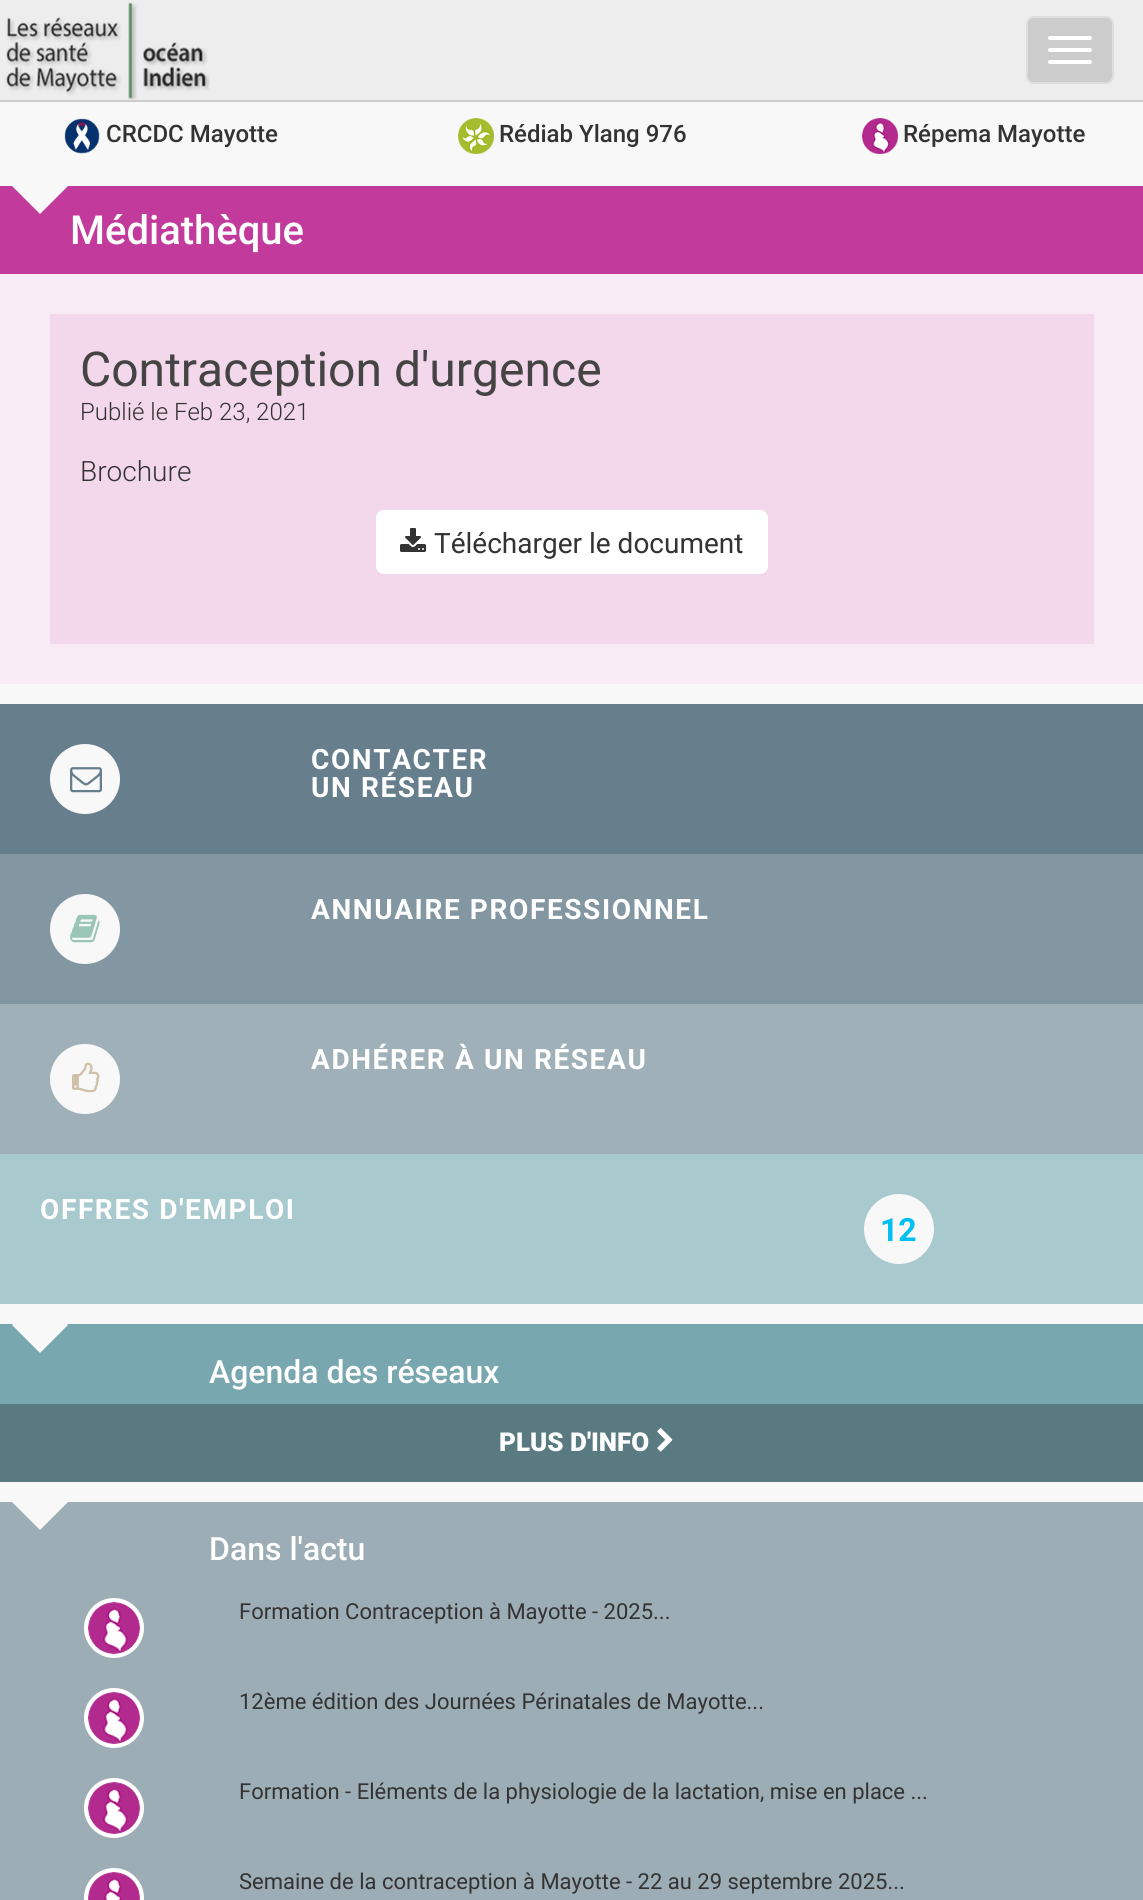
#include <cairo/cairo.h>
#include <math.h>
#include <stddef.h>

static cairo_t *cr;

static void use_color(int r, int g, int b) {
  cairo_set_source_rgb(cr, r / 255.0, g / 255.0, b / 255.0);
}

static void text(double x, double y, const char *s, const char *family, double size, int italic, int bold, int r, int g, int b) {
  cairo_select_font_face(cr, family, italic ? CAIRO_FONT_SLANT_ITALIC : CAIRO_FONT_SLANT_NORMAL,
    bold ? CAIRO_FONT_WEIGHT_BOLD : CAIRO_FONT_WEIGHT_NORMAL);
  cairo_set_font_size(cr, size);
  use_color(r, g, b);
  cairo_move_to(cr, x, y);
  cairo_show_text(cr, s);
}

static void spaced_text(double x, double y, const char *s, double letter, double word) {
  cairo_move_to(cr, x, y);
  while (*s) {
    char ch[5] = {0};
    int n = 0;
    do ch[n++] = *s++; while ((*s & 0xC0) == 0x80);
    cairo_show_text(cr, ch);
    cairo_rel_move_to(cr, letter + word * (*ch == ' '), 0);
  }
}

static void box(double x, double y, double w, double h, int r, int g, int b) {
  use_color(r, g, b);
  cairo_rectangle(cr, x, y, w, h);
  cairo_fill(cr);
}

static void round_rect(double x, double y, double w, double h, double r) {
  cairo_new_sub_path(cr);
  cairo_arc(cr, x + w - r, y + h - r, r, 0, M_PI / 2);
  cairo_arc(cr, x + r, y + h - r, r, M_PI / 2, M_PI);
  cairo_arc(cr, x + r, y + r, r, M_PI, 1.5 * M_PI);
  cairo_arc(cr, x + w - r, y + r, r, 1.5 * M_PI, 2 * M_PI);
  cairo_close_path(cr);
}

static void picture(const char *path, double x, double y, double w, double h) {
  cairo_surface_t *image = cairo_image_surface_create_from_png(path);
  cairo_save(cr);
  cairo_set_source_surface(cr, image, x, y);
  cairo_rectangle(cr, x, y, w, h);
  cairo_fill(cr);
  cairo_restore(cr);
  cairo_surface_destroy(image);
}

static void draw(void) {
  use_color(248, 248, 248);
  cairo_paint(cr);
  box(0, 0, 1143, 100, 237, 237, 237);
  box(0, 100, 1143, 2, 204, 204, 204);
  picture("img_01.png", 6, 2, 204, 98);
  round_rect(1027, 17, 86, 66, 7);
  cairo_fill_preserve(cr);
  use_color(221, 221, 221);
  cairo_stroke(cr);
  use_color(255, 255, 255);
  round_rect(1048, 36, 44, 4, 2);
  cairo_fill(cr);
  round_rect(1048, 48, 44, 4, 2);
  cairo_fill(cr);
  round_rect(1048, 60, 44, 4, 2);
  cairo_fill(cr);
  picture("img_02.png", 64, 118, 36, 36);
  picture("img_03.png", 458, 118, 36, 36);
  picture("img_04.png", 862, 118, 36, 36);
  box(0, 274, 1143, 410, 249, 235, 245);
  box(0, 186, 1143, 88, 194, 59, 156);
  cairo_save(cr);
  cairo_rectangle(cr, 0, 186, 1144, 498);
  cairo_clip(cr);
  use_color(248, 248, 248);
  cairo_new_path(cr);
  cairo_move_to(cr, 40, 157);
  cairo_line_to(cr, 68, 186);
  cairo_line_to(cr, 40, 214);
  cairo_line_to(cr, 12, 186);
  cairo_close_path(cr);
  cairo_fill(cr);
  cairo_restore(cr);
  box(50, 314, 1044, 330, 243, 215, 235);
  use_color(255, 255, 255);
  round_rect(376, 510, 392, 64, 8);
  cairo_fill(cr);
  picture("img_05.png", 400, 528, 26, 24);
  box(0, 704, 1143, 150, 103, 126, 140);
  use_color(248, 248, 248);
  cairo_arc(cr, 85, 779, 35, 0, 2 * M_PI);
  cairo_fill(cr);
  picture("img_06.png", 70, 767, 32, 26);
  box(0, 854, 1143, 150, 131, 151, 163);
  use_color(248, 248, 248);
  cairo_arc(cr, 85, 929, 35, 0, 2 * M_PI);
  cairo_fill(cr);
  picture("img_07.png", 70, 914, 30, 29);
  box(0, 1004, 1143, 150, 160, 176, 185);
  use_color(248, 248, 248);
  cairo_arc(cr, 85, 1079, 35, 0, 2 * M_PI);
  cairo_fill(cr);
  picture("img_08.png", 72, 1062, 28, 31);
  box(0, 1154, 1143, 150, 168, 201, 206);
  use_color(248, 248, 248);
  cairo_arc(cr, 899, 1229, 35, 0, 2 * M_PI);
  cairo_fill(cr);
  box(0, 1324, 1143, 80, 121, 167, 176);
  cairo_save(cr);
  cairo_rectangle(cr, 0, 1324, 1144, 158);
  cairo_clip(cr);
  use_color(248, 248, 248);
  cairo_new_path(cr);
  cairo_move_to(cr, 40, 1296);
  cairo_line_to(cr, 68, 1325);
  cairo_line_to(cr, 40, 1353);
  cairo_line_to(cr, 12, 1325);
  cairo_close_path(cr);
  cairo_fill(cr);
  cairo_restore(cr);
  box(0, 1404, 1143, 78, 88, 122, 128);
  picture("img_09.png", 657, 1428, 16, 24);
  box(0, 1502, 1143, 398, 157, 173, 181);
  cairo_save(cr);
  cairo_rectangle(cr, 0, 1502, 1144, 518);
  cairo_clip(cr);
  use_color(248, 248, 248);
  cairo_new_path(cr);
  cairo_move_to(cr, 40, 1474);
  cairo_line_to(cr, 68, 1502);
  cairo_line_to(cr, 40, 1530);
  cairo_line_to(cr, 12, 1502);
  cairo_close_path(cr);
  cairo_fill(cr);
  cairo_restore(cr);
  use_color(255, 255, 255);
  cairo_arc(cr, 114, 1628, 28, 0, 2 * M_PI);
  cairo_fill_preserve(cr);
  cairo_set_line_width(cr, 4);
  cairo_stroke(cr);
  picture("img_10.png", 88, 1602, 52, 52);
  cairo_arc(cr, 114, 1718, 28, 0, 2 * M_PI);
  cairo_fill_preserve(cr);
  cairo_stroke(cr);
  picture("img_10.png", 88, 1692, 52, 52);
  cairo_arc(cr, 114, 1808, 28, 0, 2 * M_PI);
  cairo_fill_preserve(cr);
  cairo_stroke(cr);
  picture("img_11.png", 88, 1782, 52, 52);
  cairo_arc(cr, 114, 1898, 28, 0, 2 * M_PI);
  cairo_fill_preserve(cr);
  cairo_stroke(cr);
  picture("img_12.png", 88, 1872, 52, 28);
  text(106, 142, "CRCDC Mayotte", "Roboto Medium", 24, 0, 0, 51, 51, 51);
  text(499, 142, "Rédiab Ylang 976", "Roboto Medium", 24, 0, 0, 51, 51, 51);
  text(903, 142, "Répema Mayotte", "Roboto Medium", 24, 0, 0, 51, 51, 51);
  text(70, 244, "Médiathèque", "Roboto Medium", 40, 0, 0, 255, 255, 255);
  text(80, 386, "Contraception d'urgence", "Roboto", 48, 0, 0, 68, 68, 68);
  text(80, 420, "Publié le Feb 23, 2021", "Roboto Light", 24, 0, 0, 51, 51, 51);
  text(80, 481, "Brochure", "Roboto Light", 28, 0, 0, 51, 51, 51);
  text(434, 553, "Télécharger le document", "Roboto", 28, 0, 0, 51, 51, 51);
  cairo_select_font_face(cr, "Roboto", CAIRO_FONT_SLANT_NORMAL, CAIRO_FONT_WEIGHT_BOLD);
  use_color(255, 255, 255);
  spaced_text(311, 769, "CONTACTER", 1.6, 0);
  spaced_text(311, 797, "UN RÉSEAU", 1.6, 0);
  spaced_text(311, 919, "ANNUAIRE PROFESSIONNEL", 1.6, 0);
  spaced_text(311, 1069, "ADHÉRER À UN RÉSEAU", 1.6, 0);
  spaced_text(40, 1219, "OFFRES D'EMPLOI", 1.6, 0);
  text(880, 1241, "12", "Roboto", 32, 0, 1, 0, 192, 241);
  text(209, 1383, "Agenda des réseaux", "Roboto Medium", 32, 0, 0, 255, 255, 255);
  text(499, 1451, "PLUS D'INFO", "Roboto Black", 26, 0, 0, 255, 255, 255);
  text(209, 1560, "Dans l'actu", "Roboto Medium", 32, 0, 0, 255, 255, 255);
  text(239, 1619, "Formation Contraception à Mayotte - 2025...", "Roboto", 22, 0, 0, 51, 51, 51);
  text(239, 1709, "12ème édition des Journées Périnatales de Mayotte...", "Roboto", 22, 0, 0, 51, 51, 51);
  text(239, 1799, "Formation - Eléments de la physiologie de la lactation, mise en place ...", "Roboto", 22, 0, 0, 51, 51, 51);
  text(239, 1889, "Semaine de la contraception à Mayotte - 22 au 29 septembre 2025...", "Roboto", 22, 0, 0, 51, 51, 51);
}

int main(void) {
  cairo_surface_t *surface = cairo_image_surface_create(CAIRO_FORMAT_RGB24, 1143, 1900);
  cr = cairo_create(surface);
  cairo_font_options_t *options = cairo_font_options_create();
  cairo_font_options_set_hint_metrics(options, CAIRO_HINT_METRICS_OFF);
  cairo_font_options_set_hint_style(options, CAIRO_HINT_STYLE_NONE);
  cairo_set_font_options(cr, options);
  cairo_set_miter_limit(cr, 4);
  draw();
  cairo_surface_write_to_png(surface, "out.png");
  cairo_font_options_destroy(options);
  cairo_destroy(cr);
  cairo_surface_destroy(surface);
  return 0;
}
